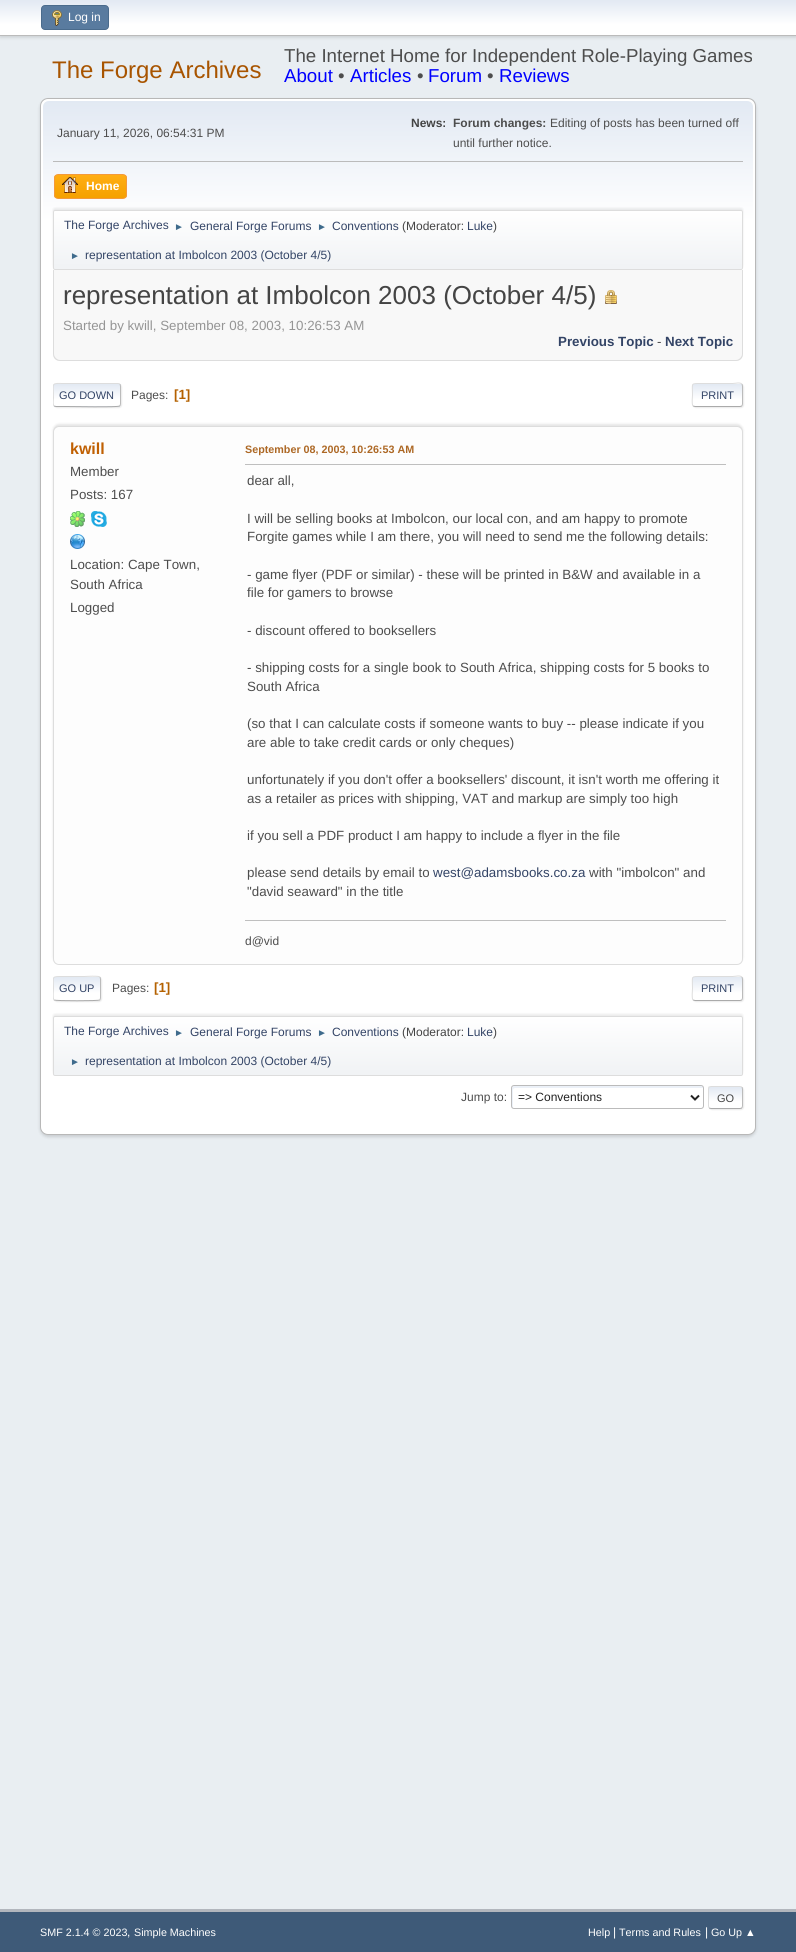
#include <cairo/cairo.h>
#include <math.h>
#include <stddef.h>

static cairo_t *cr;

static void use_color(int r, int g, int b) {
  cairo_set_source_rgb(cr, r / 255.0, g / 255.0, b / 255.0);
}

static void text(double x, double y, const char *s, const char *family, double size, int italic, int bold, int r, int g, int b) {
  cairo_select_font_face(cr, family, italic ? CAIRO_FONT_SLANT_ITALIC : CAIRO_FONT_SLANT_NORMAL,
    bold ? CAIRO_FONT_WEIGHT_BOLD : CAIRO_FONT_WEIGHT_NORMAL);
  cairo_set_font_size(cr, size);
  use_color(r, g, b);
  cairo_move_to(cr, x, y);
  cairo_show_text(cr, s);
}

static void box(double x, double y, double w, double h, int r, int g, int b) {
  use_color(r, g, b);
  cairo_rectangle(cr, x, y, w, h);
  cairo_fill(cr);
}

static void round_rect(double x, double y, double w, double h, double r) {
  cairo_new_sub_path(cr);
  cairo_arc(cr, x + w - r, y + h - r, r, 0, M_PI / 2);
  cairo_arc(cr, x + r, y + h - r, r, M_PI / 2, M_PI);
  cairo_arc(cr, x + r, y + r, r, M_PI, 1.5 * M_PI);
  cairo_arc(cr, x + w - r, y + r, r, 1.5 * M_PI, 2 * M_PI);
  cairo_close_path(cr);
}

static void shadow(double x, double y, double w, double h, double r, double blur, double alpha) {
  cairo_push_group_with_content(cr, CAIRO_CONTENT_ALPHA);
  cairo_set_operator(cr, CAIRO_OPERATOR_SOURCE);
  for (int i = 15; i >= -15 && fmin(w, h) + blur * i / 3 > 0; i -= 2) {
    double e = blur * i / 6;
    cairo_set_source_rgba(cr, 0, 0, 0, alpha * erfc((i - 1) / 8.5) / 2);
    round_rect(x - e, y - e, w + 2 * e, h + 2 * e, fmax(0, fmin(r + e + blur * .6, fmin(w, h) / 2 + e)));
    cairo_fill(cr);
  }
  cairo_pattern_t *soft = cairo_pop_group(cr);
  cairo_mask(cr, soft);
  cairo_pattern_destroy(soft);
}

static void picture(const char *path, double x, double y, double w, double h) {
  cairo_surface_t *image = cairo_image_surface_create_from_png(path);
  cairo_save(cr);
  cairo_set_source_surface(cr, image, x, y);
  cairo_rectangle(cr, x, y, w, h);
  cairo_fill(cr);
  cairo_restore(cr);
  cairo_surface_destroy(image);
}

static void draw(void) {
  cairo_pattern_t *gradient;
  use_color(233, 238, 242);
  cairo_paint(cr);
  use_color(0, 0, 0);
  shadow(0, 1, 796, 36, 0, 2, 0.16);
  gradient = cairo_pattern_create_linear(398, 0, 398, 35);
  cairo_pattern_add_color_stop_rgba(gradient, 0, 0.886, 0.914, 0.953, 1);
  cairo_pattern_add_color_stop_rgba(gradient, 0.7, 1, 1, 1, 1);
  cairo_set_source(cr, gradient);
  cairo_pattern_destroy(gradient);
  cairo_rectangle(cr, 0, 0, 796, 35);
  cairo_fill(cr);
  box(0, 35, 796, 1, 187, 187, 187);
  use_color(89, 123, 159);
  round_rect(41.5, 5.5, 67, 24, 3.5);
  cairo_fill_preserve(cr);
  use_color(74, 107, 140);
  cairo_set_line_width(cr, 1);
  cairo_stroke(cr);
  picture("img_01.png", 52, 10, 10, 16);
  use_color(0, 0, 0);
  shadow(40, 100, 716, 1037, 8, 1.5, 0.14);
  use_color(255, 255, 255);
  round_rect(40.5, 98.5, 715, 1036, 7.5);
  cairo_fill_preserve(cr);
  use_color(184, 184, 184);
  cairo_stroke(cr);
  gradient = cairo_pattern_create_linear(398, 101, 398, 272);
  cairo_pattern_add_color_stop_rgba(gradient, 0, 0.886, 0.914, 0.953, 1);
  cairo_pattern_add_color_stop_rgba(gradient, 0.7, 1, 1, 1, 1);
  cairo_set_source(cr, gradient);
  cairo_pattern_destroy(gradient);
  cairo_new_path(cr);
  cairo_move_to(cr, 49, 101);
  cairo_line_to(cr, 747, 101);
  cairo_curve_to(cr, 750.5, 101, 753, 103.5, 753, 107);
  cairo_line_to(cr, 753, 272);
  cairo_line_to(cr, 43, 272);
  cairo_line_to(cr, 43, 107);
  cairo_curve_to(cr, 43, 103.5, 45.5, 101, 49, 101);
  cairo_close_path(cr);
  cairo_fill(cr);
  box(53, 161, 690, 1, 187, 187, 187);
  cairo_save(cr);
  round_rect(54, 174, 73, 25, 4);
  cairo_clip(cr);
  gradient = cairo_pattern_create_linear(91, 175, 91, 198);
  cairo_pattern_add_color_stop_rgba(gradient, 0, 1, 0.682, 0.078, 1);
  cairo_pattern_add_color_stop_rgba(gradient, 1, 0.961, 0.631, 0, 1);
  cairo_set_source(cr, gradient);
  cairo_pattern_destroy(gradient);
  cairo_rectangle(cr, 54, 175, 73, 23);
  cairo_fill(cr);
  cairo_restore(cr);
  round_rect(54.5, 174.5, 72, 24, 3.5);
  use_color(244, 154, 58);
  cairo_stroke(cr);
  picture("img_02.png", 62, 177, 16, 16);
  use_color(0, 0, 0);
  shadow(53, 208, 690, 60, 2, 1, 0.08);
  cairo_save(cr);
  round_rect(53, 210, 690, 60, 2);
  cairo_clip(cr);
  gradient = cairo_pattern_create_linear(398, 211, 398, 269);
  cairo_pattern_add_color_stop_rgba(gradient, 0, 1, 1, 1, 1);
  cairo_pattern_add_color_stop_rgba(gradient, 0.95, 0.945, 0.953, 0.961, 1);
  cairo_set_source(cr, gradient);
  cairo_pattern_destroy(gradient);
  cairo_rectangle(cr, 53, 211, 690, 58);
  cairo_fill(cr);
  cairo_restore(cr);
  round_rect(53.5, 210.5, 689, 59, 1.5);
  use_color(221, 221, 221);
  cairo_stroke(cr);
  use_color(248, 248, 248);
  cairo_new_path(cr);
  cairo_move_to(cr, 53, 270);
  cairo_line_to(cr, 743, 270);
  cairo_line_to(cr, 743, 354);
  cairo_curve_to(cr, 743, 358, 740, 361, 736, 361);
  cairo_line_to(cr, 60, 361);
  cairo_curve_to(cr, 56, 361, 53, 358, 53, 354);
  cairo_close_path(cr);
  cairo_fill(cr);
  use_color(221, 221, 221);
  cairo_set_fill_rule(cr, CAIRO_FILL_RULE_EVEN_ODD);
  cairo_new_path(cr);
  cairo_move_to(cr, 53, 270);
  cairo_line_to(cr, 743, 270);
  cairo_line_to(cr, 743, 354);
  cairo_curve_to(cr, 743, 358, 740, 361, 736, 361);
  cairo_line_to(cr, 60, 361);
  cairo_curve_to(cr, 56, 361, 53, 358, 53, 354);
  cairo_close_path(cr);
  cairo_move_to(cr, 54, 270);
  cairo_line_to(cr, 742, 270);
  cairo_line_to(cr, 742, 354);
  cairo_curve_to(cr, 742, 357, 739, 360, 736, 360);
  cairo_line_to(cr, 60, 360);
  cairo_curve_to(cr, 57, 360, 54, 357, 54, 354);
  cairo_close_path(cr);
  cairo_fill(cr);
  picture("img_03.png", 605, 290, 12, 14);
  use_color(221, 221, 221);
  shadow(54, 384, 68, 24, 3, 0.5, 0.57);
  cairo_save(cr);
  cairo_set_fill_rule(cr, CAIRO_FILL_RULE_WINDING);
  round_rect(53, 383, 68, 24, 3);
  cairo_clip(cr);
  gradient = cairo_pattern_create_linear(87, 384, 87, 406);
  cairo_pattern_add_color_stop_rgba(gradient, 0, 0.886, 0.914, 0.953, 1);
  cairo_pattern_add_color_stop_rgba(gradient, 0.7, 1, 1, 1, 1);
  cairo_set_source(cr, gradient);
  cairo_pattern_destroy(gradient);
  cairo_rectangle(cr, 53, 384, 68, 22);
  cairo_fill(cr);
  gradient = cairo_pattern_create_linear(87, 406, 87, 428);
  cairo_pattern_add_color_stop_rgba(gradient, 0, 0.886, 0.914, 0.953, 1);
  cairo_pattern_add_color_stop_rgba(gradient, 0.7, 1, 1, 1, 1);
  cairo_set_source(cr, gradient);
  cairo_pattern_destroy(gradient);
  cairo_rectangle(cr, 53, 406, 68, 1);
  cairo_fill(cr);
  cairo_restore(cr);
  cairo_new_path(cr);
  cairo_move_to(cr, 120, 384);
  cairo_curve_to(cr, 120, 384.5, 120.5, 385.5, 120.5, 386);
  cairo_line_to(cr, 120.5, 404);
  cairo_curve_to(cr, 120.5, 404.5, 120, 405.5, 120, 406);
  use_color(187, 187, 187);
  cairo_stroke(cr);
  cairo_new_path(cr);
  cairo_move_to(cr, 120, 406);
  cairo_line_to(cr, 119.5, 406);
  cairo_curve_to(cr, 117.5, 407.5, 72.5, 406.5, 66.5, 406.5);
  cairo_line_to(cr, 56, 406.5);
  cairo_line_to(cr, 54, 406);
  use_color(170, 170, 170);
  cairo_stroke(cr);
  cairo_save(cr);
  cairo_set_fill_rule(cr, CAIRO_FILL_RULE_WINDING);
  cairo_rectangle(cr, 53, 376, 690, 38);
  cairo_clip(cr);
  cairo_new_path(cr);
  cairo_move_to(cr, 54, 406);
  cairo_curve_to(cr, 52.5, 404, 53.5, 400, 53.5, 398);
  cairo_curve_to(cr, 53.5, 381.5, 50, 383.5, 66.5, 383.5);
  cairo_line_to(cr, 118, 383.5);
  cairo_line_to(cr, 120, 384);
  use_color(221, 221, 221);
  cairo_stroke(cr);
  cairo_restore(cr);
  cairo_save(cr);
  cairo_new_path(cr);
  cairo_move_to(cr, 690, 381);
  cairo_line_to(cr, 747, 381);
  cairo_line_to(cr, 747, 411);
  cairo_line_to(cr, 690, 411);
  cairo_close_path(cr);
  cairo_move_to(cr, 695, 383);
  cairo_line_to(cr, 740, 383);
  cairo_curve_to(cr, 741.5, 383, 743, 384.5, 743, 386);
  cairo_line_to(cr, 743, 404);
  cairo_curve_to(cr, 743, 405.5, 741.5, 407, 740, 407);
  cairo_line_to(cr, 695, 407);
  cairo_curve_to(cr, 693.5, 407, 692, 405.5, 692, 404);
  cairo_line_to(cr, 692, 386);
  cairo_curve_to(cr, 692, 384.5, 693.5, 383, 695, 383);
  cairo_close_path(cr);
  cairo_clip(cr);
  use_color(221, 221, 221);
  shadow(693, 384, 51, 24, 3, 0.5, 0.57);
  cairo_restore(cr);
  use_color(255, 255, 255);
  round_rect(692, 383, 51, 24, 3);
  cairo_fill(cr);
  cairo_save(cr);
  cairo_set_fill_rule(cr, CAIRO_FILL_RULE_WINDING);
  round_rect(692, 383, 51, 24, 3);
  cairo_clip(cr);
  gradient = cairo_pattern_create_linear(718, 384, 718, 406);
  cairo_pattern_add_color_stop_rgba(gradient, 0, 0.886, 0.914, 0.953, 1);
  cairo_pattern_add_color_stop_rgba(gradient, 0.7, 1, 1, 1, 1);
  cairo_set_source(cr, gradient);
  cairo_pattern_destroy(gradient);
  cairo_rectangle(cr, 692, 384, 51, 22);
  cairo_fill(cr);
  cairo_restore(cr);
  cairo_new_path(cr);
  cairo_move_to(cr, 742, 384);
  cairo_curve_to(cr, 742, 384.5, 742.5, 385.5, 742.5, 386);
  cairo_line_to(cr, 742.5, 404);
  cairo_curve_to(cr, 742.5, 404.5, 742, 405.5, 742, 406);
  use_color(187, 187, 187);
  cairo_stroke(cr);
  cairo_new_path(cr);
  cairo_move_to(cr, 742, 406);
  cairo_line_to(cr, 740, 406.5);
  cairo_line_to(cr, 695, 406.5);
  cairo_line_to(cr, 693, 406);
  use_color(170, 170, 170);
  cairo_stroke(cr);
  cairo_new_path(cr);
  cairo_move_to(cr, 693, 406);
  cairo_curve_to(cr, 691.5, 404, 692.5, 397, 692.5, 395);
  cairo_curve_to(cr, 692.5, 382.5, 690, 383.5, 702.5, 383.5);
  cairo_line_to(cr, 732.5, 383.5);
  cairo_curve_to(cr, 735.5, 383.5, 739.5, 382, 742, 384);
  use_color(221, 221, 221);
  cairo_stroke(cr);
  use_color(0, 0, 0);
  shadow(53, 424, 690, 539, 6, 1, 0.1);
  use_color(253, 253, 253);
  round_rect(53.5, 426.5, 689, 538, 5.5);
  cairo_fill_preserve(cr);
  use_color(221, 221, 221);
  cairo_stroke(cr);
  picture("img_04.png", 70, 511, 15, 16);
  picture("img_05.png", 91, 511, 16, 16);
  picture("img_06.png", 70, 534, 15, 15);
  box(245, 464, 481, 1, 191, 191, 191);
  box(245, 920, 481, 1, 191, 191, 191);
  use_color(221, 221, 221);
  shadow(54, 977, 48, 25, 3, 0.5, 0.57);
  use_color(255, 255, 255);
  round_rect(53, 976, 48, 25, 3);
  cairo_fill(cr);
  cairo_save(cr);
  cairo_set_fill_rule(cr, CAIRO_FILL_RULE_WINDING);
  round_rect(53, 976, 48, 25, 3);
  cairo_clip(cr);
  gradient = cairo_pattern_create_linear(77, 977, 77, 1000);
  cairo_pattern_add_color_stop_rgba(gradient, 0, 0.886, 0.914, 0.953, 1);
  cairo_pattern_add_color_stop_rgba(gradient, 0.7, 1, 1, 1, 1);
  cairo_set_source(cr, gradient);
  cairo_pattern_destroy(gradient);
  cairo_rectangle(cr, 53, 977, 48, 23);
  cairo_fill(cr);
  cairo_restore(cr);
  cairo_new_path(cr);
  cairo_move_to(cr, 100, 977);
  cairo_curve_to(cr, 100, 977.5, 100.5, 978.5, 100.5, 979);
  cairo_line_to(cr, 100.5, 998);
  cairo_curve_to(cr, 100.5, 998.5, 100, 999.5, 100, 1000);
  use_color(187, 187, 187);
  cairo_stroke(cr);
  cairo_new_path(cr);
  cairo_move_to(cr, 100, 1000);
  cairo_curve_to(cr, 98.5, 1001, 55.5, 1001, 54, 1000);
  use_color(170, 170, 170);
  cairo_stroke(cr);
  cairo_save(cr);
  cairo_set_fill_rule(cr, CAIRO_FILL_RULE_WINDING);
  cairo_rectangle(cr, 53, 969, 690, 39);
  cairo_clip(cr);
  cairo_new_path(cr);
  cairo_move_to(cr, 54, 1000);
  cairo_curve_to(cr, 52.5, 998, 53.5, 991, 53.5, 988.5);
  cairo_curve_to(cr, 53.5, 976, 51, 976.5, 63, 976.5);
  cairo_line_to(cr, 84, 976.5);
  cairo_curve_to(cr, 86.5, 976.5, 98, 975.5, 100, 977);
  use_color(221, 221, 221);
  cairo_stroke(cr);
  cairo_restore(cr);
  cairo_save(cr);
  cairo_new_path(cr);
  cairo_move_to(cr, 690, 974);
  cairo_line_to(cr, 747, 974);
  cairo_line_to(cr, 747, 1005);
  cairo_line_to(cr, 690, 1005);
  cairo_close_path(cr);
  cairo_move_to(cr, 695, 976);
  cairo_line_to(cr, 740, 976);
  cairo_curve_to(cr, 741.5, 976, 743, 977.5, 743, 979);
  cairo_line_to(cr, 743, 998);
  cairo_curve_to(cr, 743, 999.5, 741.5, 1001, 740, 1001);
  cairo_line_to(cr, 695, 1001);
  cairo_curve_to(cr, 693.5, 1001, 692, 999.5, 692, 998);
  cairo_line_to(cr, 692, 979);
  cairo_curve_to(cr, 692, 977.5, 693.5, 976, 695, 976);
  cairo_close_path(cr);
  cairo_clip(cr);
  use_color(221, 221, 221);
  shadow(693, 977, 51, 25, 3, 0.5, 0.57);
  cairo_restore(cr);
  use_color(255, 255, 255);
  round_rect(692, 976, 51, 25, 3);
  cairo_fill(cr);
  cairo_save(cr);
  cairo_set_fill_rule(cr, CAIRO_FILL_RULE_WINDING);
  round_rect(692, 976, 51, 25, 3);
  cairo_clip(cr);
  gradient = cairo_pattern_create_linear(718, 977, 718, 1000);
  cairo_pattern_add_color_stop_rgba(gradient, 0, 0.886, 0.914, 0.953, 1);
  cairo_pattern_add_color_stop_rgba(gradient, 0.7, 1, 1, 1, 1);
  cairo_set_source(cr, gradient);
  cairo_pattern_destroy(gradient);
  cairo_rectangle(cr, 692, 977, 51, 23);
  cairo_fill(cr);
  cairo_restore(cr);
  cairo_new_path(cr);
  cairo_move_to(cr, 742, 977);
  cairo_curve_to(cr, 742, 977.5, 742.5, 978.5, 742.5, 979);
  cairo_line_to(cr, 742.5, 998);
  cairo_curve_to(cr, 742.5, 998.5, 742, 999.5, 742, 1000);
  use_color(187, 187, 187);
  cairo_stroke(cr);
  cairo_new_path(cr);
  cairo_move_to(cr, 742, 1000);
  cairo_line_to(cr, 740, 1000.5);
  cairo_line_to(cr, 695, 1000.5);
  cairo_line_to(cr, 693, 1000);
  use_color(170, 170, 170);
  cairo_stroke(cr);
  cairo_new_path(cr);
  cairo_move_to(cr, 693, 1000);
  cairo_curve_to(cr, 691.5, 998, 692.5, 991, 692.5, 988.5);
  cairo_curve_to(cr, 692.5, 975.5, 690, 976.5, 702.5, 976.5);
  cairo_line_to(cr, 732.5, 976.5);
  cairo_curve_to(cr, 735.5, 976.5, 739.5, 975, 742, 977);
  use_color(221, 221, 221);
  cairo_stroke(cr);
  use_color(0, 0, 0);
  shadow(53, 1014, 690, 60, 2, 1, 0.08);
  cairo_save(cr);
  cairo_set_fill_rule(cr, CAIRO_FILL_RULE_WINDING);
  round_rect(53, 1016, 690, 60, 2);
  cairo_clip(cr);
  gradient = cairo_pattern_create_linear(398, 1017, 398, 1075);
  cairo_pattern_add_color_stop_rgba(gradient, 0, 1, 1, 1, 1);
  cairo_pattern_add_color_stop_rgba(gradient, 0.95, 0.945, 0.953, 0.961, 1);
  cairo_set_source(cr, gradient);
  cairo_pattern_destroy(gradient);
  cairo_rectangle(cr, 53, 1017, 690, 58);
  cairo_fill(cr);
  cairo_restore(cr);
  round_rect(53.5, 1016.5, 689, 59, 1.5);
  use_color(221, 221, 221);
  cairo_stroke(cr);
  use_color(236, 241, 248);
  cairo_set_fill_rule(cr, CAIRO_FILL_RULE_WINDING);
  cairo_new_path(cr);
  cairo_move_to(cr, 515, 1088);
  cairo_line_to(cr, 703, 1088);
  cairo_curve_to(cr, 703, 1087, 702, 1086, 701, 1086);
  cairo_line_to(cr, 514, 1086);
  cairo_curve_to(cr, 513, 1086, 512, 1087, 512, 1088);
  cairo_line_to(cr, 512, 1106);
  cairo_curve_to(cr, 512, 1107, 512, 1107, 513, 1108);
  cairo_line_to(cr, 513, 1090);
  cairo_curve_to(cr, 513, 1089, 514, 1088, 515, 1088);
  cairo_close_path(cr);
  cairo_fill(cr);
  round_rect(511.5, 1085.5, 192, 23, 2.5);
  use_color(187, 187, 187);
  cairo_stroke(cr);
  cairo_new_path(cr);
  cairo_move_to(cr, 691, 1095.5);
  cairo_line_to(cr, 695, 1099.5);
  cairo_line_to(cr, 699, 1095.5);
  use_color(34, 34, 34);
  cairo_set_line_width(cr, 2);
  cairo_stroke(cr);
  use_color(221, 221, 221);
  shadow(709, 1087, 35, 23, 3, 0.5, 0.57);
  cairo_save(cr);
  round_rect(708, 1086, 35, 23, 3);
  cairo_clip(cr);
  gradient = cairo_pattern_create_linear(726, 1087, 726, 1108);
  cairo_pattern_add_color_stop_rgba(gradient, 0, 0.886, 0.914, 0.953, 1);
  cairo_pattern_add_color_stop_rgba(gradient, 0.7, 1, 1, 1, 1);
  cairo_set_source(cr, gradient);
  cairo_pattern_destroy(gradient);
  cairo_rectangle(cr, 708, 1087, 35, 21);
  cairo_fill(cr);
  cairo_restore(cr);
  cairo_new_path(cr);
  cairo_move_to(cr, 742, 1087);
  cairo_curve_to(cr, 742, 1087.5, 742.5, 1088.5, 742.5, 1089);
  cairo_line_to(cr, 742.5, 1106);
  cairo_curve_to(cr, 742.5, 1106.5, 742, 1107.5, 742, 1108);
  use_color(187, 187, 187);
  cairo_set_line_width(cr, 1);
  cairo_stroke(cr);
  cairo_new_path(cr);
  cairo_move_to(cr, 742, 1108);
  cairo_curve_to(cr, 741.5, 1108, 740.5, 1108.5, 740, 1108.5);
  cairo_line_to(cr, 711, 1108.5);
  cairo_curve_to(cr, 710.5, 1108.5, 709.5, 1108, 709, 1108);
  use_color(170, 170, 170);
  cairo_stroke(cr);
  cairo_new_path(cr);
  cairo_move_to(cr, 709, 1108);
  cairo_curve_to(cr, 709, 1107.5, 708.5, 1106.5, 708.5, 1106);
  cairo_line_to(cr, 708.5, 1089);
  cairo_curve_to(cr, 708.5, 1088.5, 709, 1087.5, 709, 1087);
  cairo_curve_to(cr, 709.5, 1087, 710.5, 1086.5, 711, 1086.5);
  cairo_line_to(cr, 740, 1086.5);
  cairo_curve_to(cr, 740.5, 1086.5, 741.5, 1087, 742, 1087);
  use_color(221, 221, 221);
  cairo_stroke(cr);
  box(0, 1912, 796, 40, 62, 90, 120);
  box(0, 1909, 796, 3, 178, 182, 189);
  text(68, 21, "Log in", "Liberation Sans", 12, 0, 0, 255, 255, 255);
  text(52, 78, "The Forge Archives", "Liberation Sans", 24, 0, 0, 168, 84, 0);
  text(284, 62, "The Internet Home for Independent Role-Playing Games", "Liberation Sans", 18.7, 0, 0, 77, 77, 77);
  text(284, 82, "About", "Liberation Sans", 18.7, 0, 0, 0, 0, 255);
  text(338, 82, "•", "Liberation Sans", 18.7, 0, 0, 77, 77, 77);
  text(350, 82, "Articles", "Liberation Sans", 18.7, 0, 0, 0, 0, 255);
  text(417, 82, "•", "Liberation Sans", 18.7, 0, 0, 77, 77, 77);
  text(428, 82, "Forum", "Liberation Sans", 18.7, 0, 0, 0, 0, 255);
  text(487, 82, "•", "Liberation Sans", 18.7, 0, 0, 77, 77, 77);
  text(499, 82, "Reviews", "Liberation Sans", 18.7, 0, 0, 0, 0, 255);
  text(57, 137, "January 11, 2026, 06:54:31 PM", "Liberation Sans", 12, 0, 0, 77, 77, 77);
  text(411, 127, "News:", "Liberation Sans", 12, 0, 1, 68, 68, 68);
  text(453, 127, "Forum changes:", "Liberation Sans", 12, 0, 1, 77, 77, 77);
  text(550, 127, "Editing of posts has been turned off", "Liberation Sans", 12, 0, 0, 77, 77, 77);
  text(453, 147, "until further notice.", "Liberation Sans", 12, 0, 0, 77, 77, 77);
  text(86, 190, "Home", "Liberation Sans", 12, 0, 1, 255, 255, 255);
  text(64, 229, "The Forge Archives", "Liberation Sans", 12, 0, 0, 51, 68, 102);
  text(174, 230, "►", "Liberation Sans", 10, 0, 0, 63, 107, 140);
  text(190, 230, "General Forge Forums", "Liberation Sans", 12, 0, 0, 51, 68, 102);
  text(317, 230, "►", "Liberation Sans", 10, 0, 0, 63, 107, 140);
  text(332, 230, "Conventions", "Liberation Sans", 12, 0, 0, 51, 68, 102);
  text(402, 230, "(Moderator:", "Liberation Sans", 12, 0, 0, 68, 68, 68);
  text(467, 230, "Luke", "Liberation Sans", 12, 0, 0, 51, 68, 102);
  text(493, 230, ")", "Liberation Sans", 12, 0, 0, 68, 68, 68);
  text(70, 259, "►", "Liberation Sans", 10, 0, 0, 63, 107, 140);
  text(85, 259, "representation at Imbolcon 2003 (October 4/5)", "Liberation Sans", 12, 0, 0, 51, 68, 102);
  text(63, 304, "representation at Imbolcon 2003 (October 4/5)", "Liberation Sans", 26, 0, 0, 68, 68, 68);
  text(63, 330, "Started by kwill, September 08, 2003, 10:26:53 AM", "Liberation Sans", 13.35, 0, 0, 149, 149, 149);
  text(558, 346, "Previous Topic", "Liberation Sans", 13.35, 0, 1, 51, 68, 102);
  text(657, 346, "-", "Liberation Sans", 13.35, 0, 0, 77, 77, 77);
  text(665, 346, "Next Topic", "Liberation Sans", 13.35, 0, 1, 51, 68, 102);
  text(59, 399, "GO DOWN", "Liberation Sans", 11, 0, 0, 51, 68, 102);
  text(131, 399, "Pages:", "Liberation Sans", 12, 0, 0, 77, 77, 77);
  text(174, 399, "[1]", "Liberation Sans", 13.35, 0, 1, 180, 97, 0);
  text(701, 399, "PRINT", "Liberation Sans", 11, 0, 0, 51, 68, 102);
  text(70, 454, "kwill", "Liberation Sans", 16, 0, 1, 192, 96, 2);
  text(70, 476, "Member", "Liberation Sans", 13.35, 0, 0, 77, 77, 77);
  text(70, 499, "Posts: 167", "Liberation Sans", 13.35, 0, 0, 77, 77, 77);
  text(70, 569, "Location: Cape Town,", "Liberation Sans", 13.35, 0, 0, 77, 77, 77);
  text(70, 589, "South Africa", "Liberation Sans", 13.35, 0, 0, 77, 77, 77);
  text(70, 612, "Logged", "Liberation Sans", 13.35, 0, 0, 77, 77, 77);
  text(245, 453, "September 08, 2003, 10:26:53 AM", "Liberation Sans", 10.75, 0, 1, 173, 104, 37);
  text(247, 485, "dear all,", "Liberation Sans", 13.35, 0, 0, 77, 77, 77);
  text(247, 523, "I will be selling books at Imbolcon, our local con, and am happy to promote", "Liberation Sans", 13.35, 0, 0, 77, 77, 77);
  text(247, 541, "Forgite games while I am there, you will need to send me the following details:", "Liberation Sans", 13.35, 0, 0, 77, 77, 77);
  text(247, 579, "- game flyer (PDF or similar) - these will be printed in B&W and available in a", "Liberation Sans", 13.35, 0, 0, 77, 77, 77);
  text(247, 597, "file for gamers to browse", "Liberation Sans", 13.35, 0, 0, 77, 77, 77);
  text(247, 635, "- discount offered to booksellers", "Liberation Sans", 13.35, 0, 0, 77, 77, 77);
  text(247, 672, "- shipping costs for a single book to South Africa, shipping costs for 5 books to", "Liberation Sans", 13.35, 0, 0, 77, 77, 77);
  text(247, 691, "South Africa", "Liberation Sans", 13.35, 0, 0, 77, 77, 77);
  text(247, 728, "(so that I can calculate costs if someone wants to buy -- please indicate if you", "Liberation Sans", 13.35, 0, 0, 77, 77, 77);
  text(247, 747, "are able to take credit cards or only cheques)", "Liberation Sans", 13.35, 0, 0, 77, 77, 77);
  text(247, 784, "unfortunately if you don't offer a booksellers' discount, it isn't worth me offering it", "Liberation Sans", 13.35, 0, 0, 77, 77, 77);
  text(247, 803, "as a retailer as prices with shipping, VAT and markup are simply too high", "Liberation Sans", 13.35, 0, 0, 77, 77, 77);
  text(247, 840, "if you sell a PDF product I am happy to include a flyer in the file", "Liberation Sans", 13.35, 0, 0, 77, 77, 77);
  text(247, 877, "please send details by email to", "Liberation Sans", 13.35, 0, 0, 77, 77, 77);
  text(433, 877, "west@adamsbooks.co.za", "Liberation Sans", 13.35, 0, 0, 51, 68, 102);
  text(589, 877, "with \"imbolcon\" and", "Liberation Sans", 13.35, 0, 0, 77, 77, 77);
  text(247, 896, "\"david seaward\" in the title", "Liberation Sans", 13.35, 0, 0, 77, 77, 77);
  text(245, 945, "d@vid", "Liberation Sans", 12, 0, 0, 77, 77, 77);
  text(59, 992, "GO UP", "Liberation Sans", 11, 0, 0, 51, 68, 102);
  text(112, 992, "Pages:", "Liberation Sans", 12, 0, 0, 77, 77, 77);
  text(154, 992, "[1]", "Liberation Sans", 13.35, 0, 1, 180, 97, 0);
  text(701, 992, "PRINT", "Liberation Sans", 11, 0, 0, 51, 68, 102);
  text(64, 1035, "The Forge Archives", "Liberation Sans", 12, 0, 0, 51, 68, 102);
  text(174, 1036, "►", "Liberation Sans", 10, 0, 0, 63, 107, 140);
  text(190, 1036, "General Forge Forums", "Liberation Sans", 12, 0, 0, 51, 68, 102);
  text(317, 1036, "►", "Liberation Sans", 10, 0, 0, 63, 107, 140);
  text(332, 1036, "Conventions", "Liberation Sans", 12, 0, 0, 51, 68, 102);
  text(402, 1036, "(Moderator:", "Liberation Sans", 12, 0, 0, 68, 68, 68);
  text(467, 1036, "Luke", "Liberation Sans", 12, 0, 0, 51, 68, 102);
  text(493, 1036, ")", "Liberation Sans", 12, 0, 0, 68, 68, 68);
  text(70, 1065, "►", "Liberation Sans", 10, 0, 0, 63, 107, 140);
  text(85, 1065, "representation at Imbolcon 2003 (October 4/5)", "Liberation Sans", 12, 0, 0, 51, 68, 102);
  text(461, 1101, "Jump to:", "Liberation Sans", 12, 0, 0, 77, 77, 77);
  text(518, 1101, "=> Conventions", "Liberation Sans", 12, 0, 0, 34, 34, 34);
  text(717, 1102, "GO", "Liberation Sans", 11, 0, 0, 68, 68, 68);
  text(40, 1936, "SMF 2.1.4 © 2023", "Liberation Sans", 10.75, 0, 0, 255, 255, 255);
  text(127, 1936, ",", "Liberation Sans", 12, 0, 0, 255, 255, 255);
  text(134, 1936, "Simple Machines", "Liberation Sans", 10.75, 0, 0, 255, 255, 255);
  text(588, 1936, "Help", "Liberation Sans", 10.75, 0, 0, 255, 255, 255);
  text(613, 1936, "|", "Liberation Sans", 12, 0, 0, 255, 255, 255);
  text(619, 1936, "Terms and Rules", "Liberation Sans", 10.75, 0, 0, 255, 255, 255);
  text(705, 1936, "|", "Liberation Sans", 12, 0, 0, 255, 255, 255);
  text(711, 1936, "Go Up ▲", "Liberation Sans", 10.75, 0, 0, 255, 255, 255);
}

int main(void) {
  cairo_surface_t *surface = cairo_image_surface_create(CAIRO_FORMAT_RGB24, 796, 1952);
  cr = cairo_create(surface);
  cairo_font_options_t *options = cairo_font_options_create();
  cairo_font_options_set_hint_metrics(options, CAIRO_HINT_METRICS_OFF);
  cairo_font_options_set_hint_style(options, CAIRO_HINT_STYLE_NONE);
  cairo_set_font_options(cr, options);
  cairo_set_miter_limit(cr, 4);
  draw();
  cairo_surface_write_to_png(surface, "out.png");
  cairo_font_options_destroy(options);
  cairo_destroy(cr);
  cairo_surface_destroy(surface);
  return 0;
}
